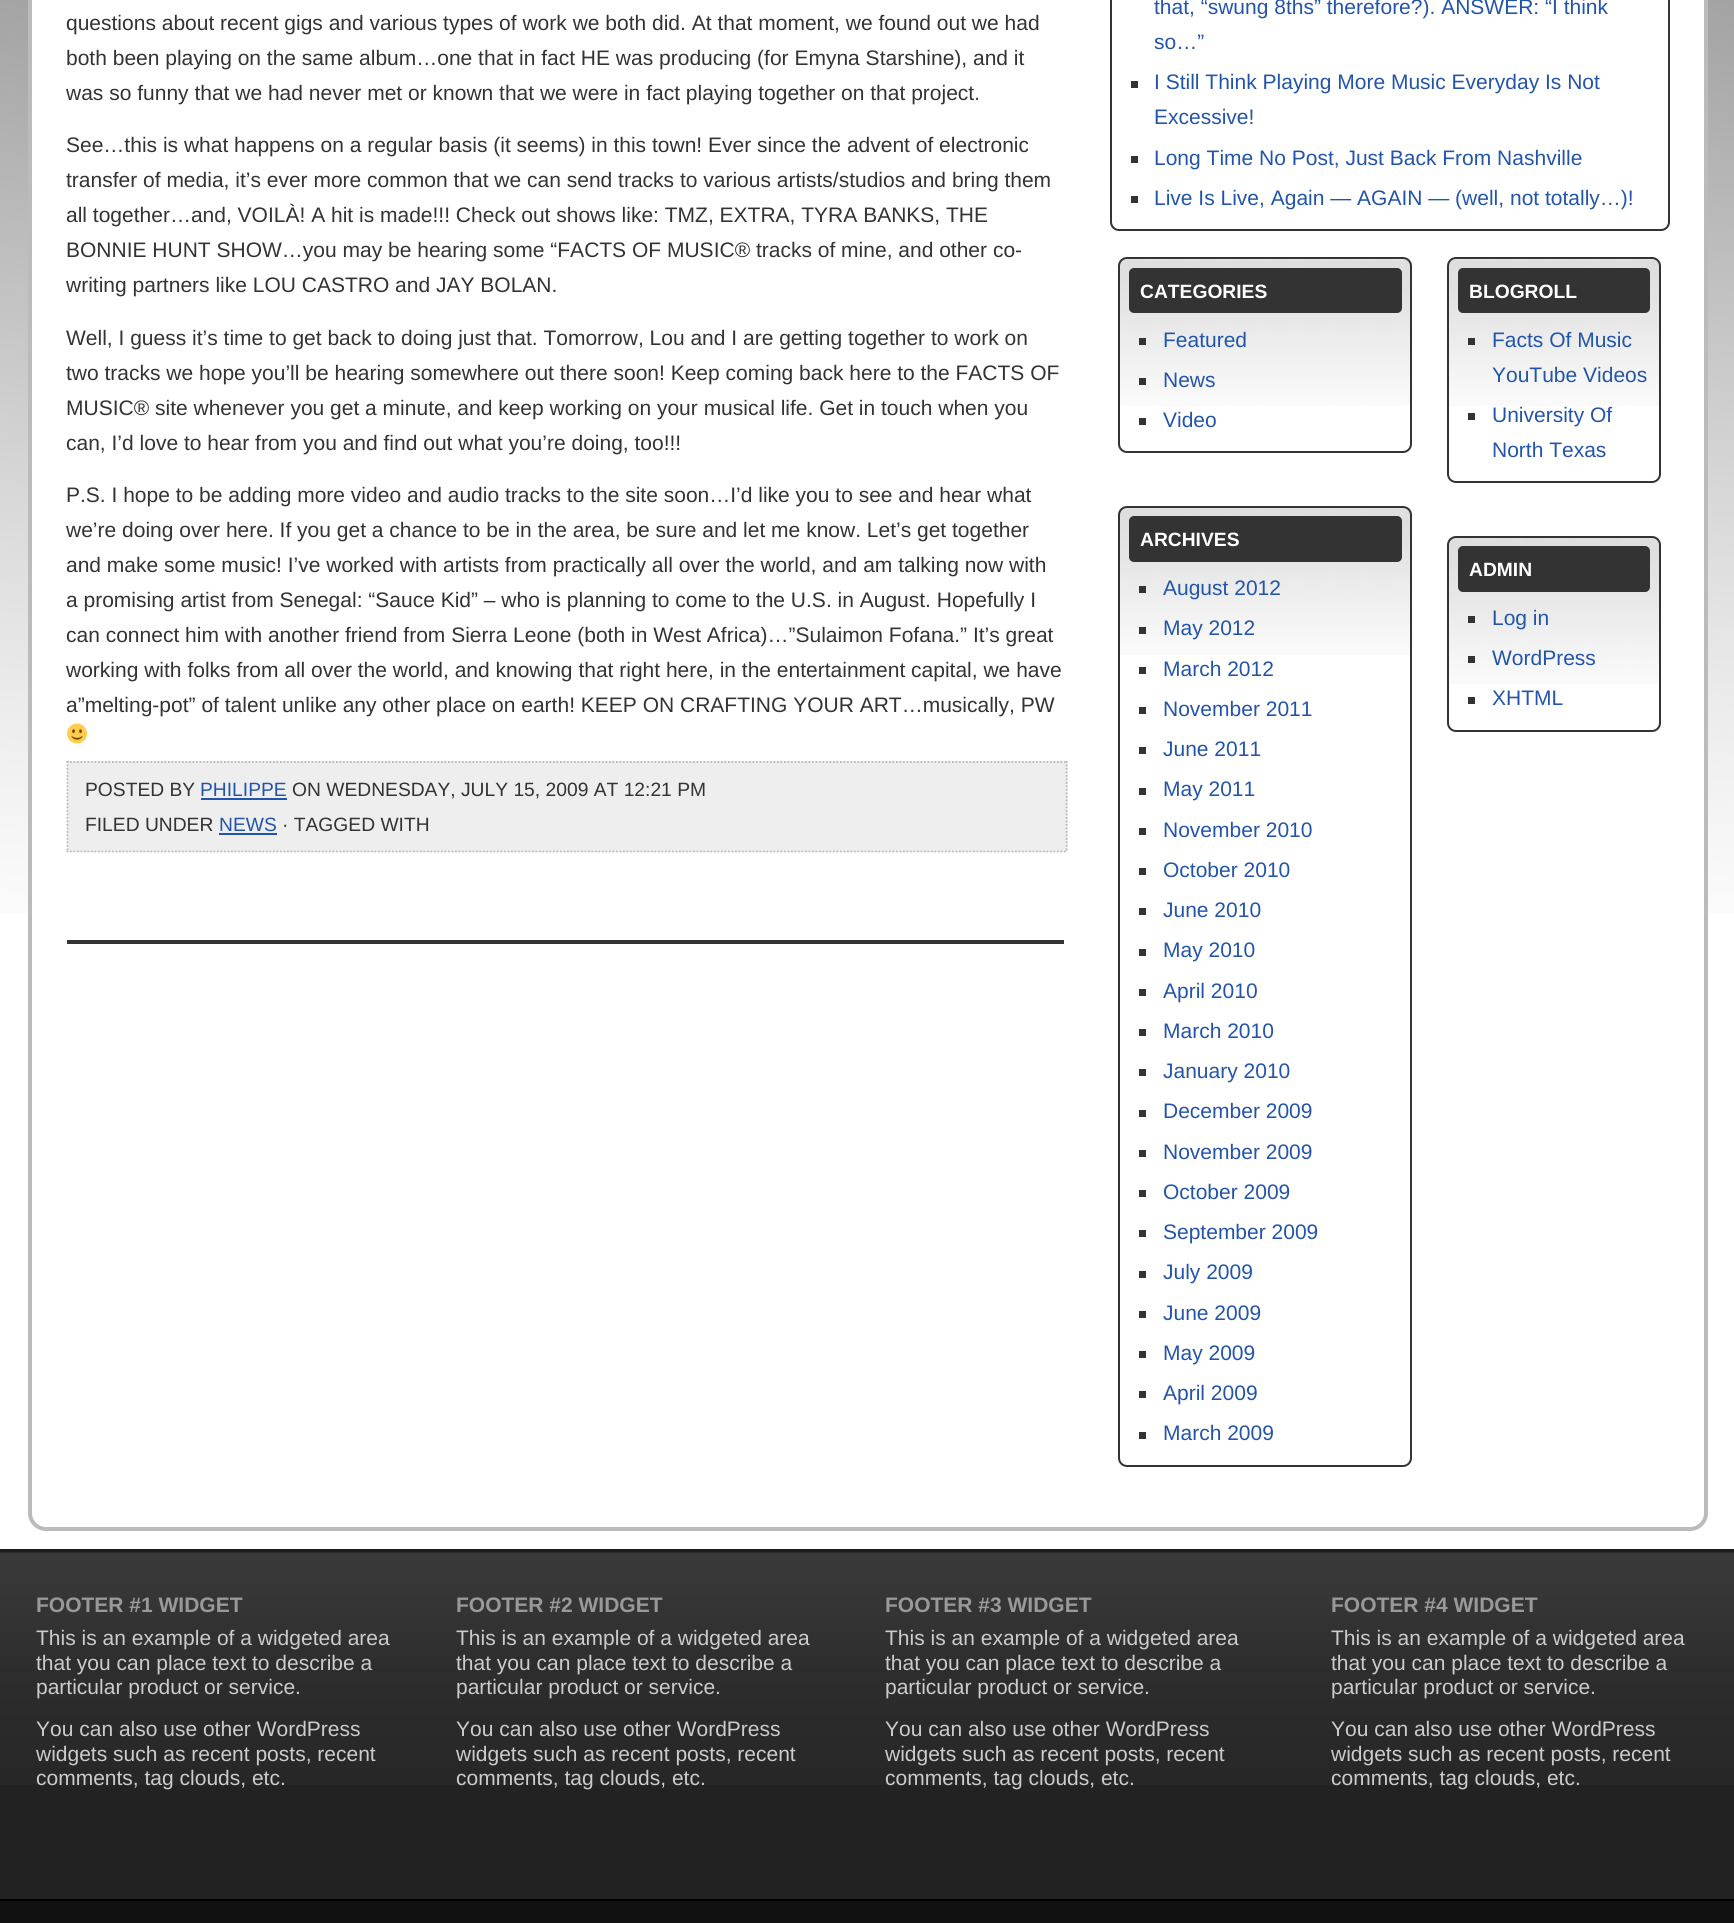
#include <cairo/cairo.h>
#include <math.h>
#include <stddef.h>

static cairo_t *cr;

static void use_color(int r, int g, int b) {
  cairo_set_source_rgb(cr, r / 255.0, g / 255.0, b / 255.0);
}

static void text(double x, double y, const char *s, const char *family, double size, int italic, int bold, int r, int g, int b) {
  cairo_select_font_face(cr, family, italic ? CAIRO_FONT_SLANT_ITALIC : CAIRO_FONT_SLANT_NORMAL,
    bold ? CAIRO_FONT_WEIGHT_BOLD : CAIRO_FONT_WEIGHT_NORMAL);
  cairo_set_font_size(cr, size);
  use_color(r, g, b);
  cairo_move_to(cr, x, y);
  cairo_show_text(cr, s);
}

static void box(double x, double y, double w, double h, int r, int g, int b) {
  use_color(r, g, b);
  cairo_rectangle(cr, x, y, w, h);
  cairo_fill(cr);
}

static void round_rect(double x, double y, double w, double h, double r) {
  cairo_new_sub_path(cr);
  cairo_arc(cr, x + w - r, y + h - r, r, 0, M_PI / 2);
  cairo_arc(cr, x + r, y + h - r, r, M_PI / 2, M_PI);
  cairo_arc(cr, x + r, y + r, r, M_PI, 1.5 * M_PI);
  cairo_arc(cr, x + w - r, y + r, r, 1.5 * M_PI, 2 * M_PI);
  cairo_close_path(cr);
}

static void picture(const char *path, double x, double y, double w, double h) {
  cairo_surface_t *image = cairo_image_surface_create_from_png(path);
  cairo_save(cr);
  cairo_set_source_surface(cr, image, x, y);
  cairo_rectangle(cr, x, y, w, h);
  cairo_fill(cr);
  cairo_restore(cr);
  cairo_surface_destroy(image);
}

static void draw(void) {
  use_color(17, 17, 17);
  cairo_paint(cr);
  box(0, 914, 1734, 635, 255, 255, 255);
  picture("img_01.png", 0, 0, 1734, 914);
  round_rect(30, -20, 1676, 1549, 16);
  cairo_fill_preserve(cr);
  use_color(187, 187, 187);
  cairo_set_line_width(cr, 4);
  cairo_stroke(cr);
  picture("img_02.png", 67, 723, 20, 21);
  box(67, 761, 1001, 91, 238, 238, 238);
  cairo_new_path(cr);
  cairo_move_to(cr, 66.5, 762);
  cairo_line_to(cr, 1067.5, 762);
  use_color(187, 187, 187);
  cairo_set_line_width(cr, 1.8);
  cairo_set_dash(cr, (double[]){1.75, 1.75}, 2, 0);
  cairo_stroke(cr);
  cairo_new_path(cr);
  cairo_move_to(cr, 1066.5, 761);
  cairo_line_to(cr, 1066.5, 852);
  cairo_stroke(cr);
  cairo_new_path(cr);
  cairo_move_to(cr, 66.5, 851.5);
  cairo_line_to(cr, 1067.5, 851.5);
  cairo_stroke(cr);
  cairo_new_path(cr);
  cairo_move_to(cr, 67.5, 761);
  cairo_line_to(cr, 67.5, 852);
  cairo_stroke(cr);
  box(201, 798, 86, 2, 34, 85, 170);
  box(219, 833, 58, 2, 34, 85, 170);
  box(67, 940, 997, 4, 51, 51, 51);
  round_rect(1111, -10, 558, 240, 8);
  cairo_set_line_width(cr, 2);
  cairo_set_dash(cr, NULL, 0, 0);
  cairo_stroke(cr);
  box(1131, 81, 7, 7, 51, 51, 51);
  box(1131, 156, 7, 7, 51, 51, 51);
  box(1131, 196, 7, 7, 51, 51, 51);
  picture("img_03.png", 1118, 259, 294, 147);
  round_rect(1119, 258, 292, 194, 8);
  cairo_stroke(cr);
  round_rect(1129, 268, 273, 45, 5);
  cairo_fill(cr);
  box(1139, 338, 7, 7, 51, 51, 51);
  box(1139, 378, 7, 7, 51, 51, 51);
  box(1139, 418, 7, 7, 51, 51, 51);
  picture("img_04.png", 1118, 507, 294, 148);
  round_rect(1119, 507, 292, 959, 8);
  cairo_stroke(cr);
  round_rect(1129, 516, 273, 46, 5);
  cairo_fill(cr);
  box(1139, 586, 7, 7, 51, 51, 51);
  box(1139, 627, 7, 7, 51, 51, 51);
  box(1139, 667, 7, 7, 51, 51, 51);
  box(1139, 707, 7, 7, 51, 51, 51);
  box(1139, 747, 7, 7, 51, 51, 51);
  box(1139, 788, 7, 7, 51, 51, 51);
  box(1139, 828, 7, 7, 51, 51, 51);
  box(1139, 868, 7, 7, 51, 51, 51);
  box(1139, 908, 7, 7, 51, 51, 51);
  box(1139, 949, 7, 7, 51, 51, 51);
  box(1139, 989, 7, 7, 51, 51, 51);
  box(1139, 1029, 7, 7, 51, 51, 51);
  box(1139, 1069, 7, 7, 51, 51, 51);
  box(1139, 1110, 7, 7, 51, 51, 51);
  box(1139, 1150, 7, 7, 51, 51, 51);
  box(1139, 1190, 7, 7, 51, 51, 51);
  box(1139, 1230, 7, 7, 51, 51, 51);
  box(1139, 1271, 7, 7, 51, 51, 51);
  box(1139, 1311, 7, 7, 51, 51, 51);
  box(1139, 1351, 7, 7, 51, 51, 51);
  box(1139, 1391, 7, 7, 51, 51, 51);
  box(1139, 1432, 7, 7, 51, 51, 51);
  picture("img_05.png", 1447, 259, 214, 147);
  round_rect(1448, 258, 212, 224, 8);
  cairo_stroke(cr);
  round_rect(1458, 268, 192, 45, 5);
  cairo_fill(cr);
  box(1468, 338, 7, 7, 51, 51, 51);
  box(1468, 413, 7, 7, 51, 51, 51);
  picture("img_06.png", 1447, 537, 214, 147);
  round_rect(1448, 537, 212, 194, 8);
  cairo_stroke(cr);
  round_rect(1458, 546, 192, 46, 5);
  cairo_fill(cr);
  box(1468, 616, 7, 7, 51, 51, 51);
  box(1468, 656, 7, 7, 51, 51, 51);
  box(1468, 697, 7, 7, 51, 51, 51);
  box(0, 1785, 1734, 114, 34, 34, 34);
  picture("img_07.png", 0, 1549, 1734, 236);
  box(0, 1899, 1734, 2, 0, 0, 0);
  text(66, 30, "questions about recent gigs and various types of work we both did. At that moment, we found out we had", "Liberation Sans", 21, 0, 0, 51, 51, 51);
  text(66, 65, "both been playing on the same album…one that in fact HE was producing (for Emyna Starshine), and it", "Liberation Sans", 21, 0, 0, 51, 51, 51);
  text(66, 100, "was so funny that we had never met or known that we were in fact playing together on that project.", "Liberation Sans", 21, 0, 0, 51, 51, 51);
  text(66, 152, "See…this is what happens on a regular basis (it seems) in this town! Ever since the advent of electronic", "Liberation Sans", 21, 0, 0, 51, 51, 51);
  text(66, 187, "transfer of media, it’s ever more common that we can send tracks to various artists/studios and bring them", "Liberation Sans", 21, 0, 0, 51, 51, 51);
  text(66, 222, "all together…and, VOILÀ! A hit is made!!! Check out shows like: TMZ, EXTRA, TYRA BANKS, THE", "Liberation Sans", 21, 0, 0, 51, 51, 51);
  text(66, 257, "BONNIE HUNT SHOW…you may be hearing some “FACTS OF MUSIC® tracks of mine, and other co-", "Liberation Sans", 21, 0, 0, 51, 51, 51);
  text(66, 292, "writing partners like LOU CASTRO and JAY BOLAN.", "Liberation Sans", 21, 0, 0, 51, 51, 51);
  text(66, 345, "Well, I guess it’s time to get back to doing just that. Tomorrow, Lou and I are getting together to work on", "Liberation Sans", 21, 0, 0, 51, 51, 51);
  text(66, 380, "two tracks we hope you’ll be hearing somewhere out there soon! Keep coming back here to the FACTS OF", "Liberation Sans", 21, 0, 0, 51, 51, 51);
  text(66, 415, "MUSIC® site whenever you get a minute, and keep working on your musical life. Get in touch when you", "Liberation Sans", 21, 0, 0, 51, 51, 51);
  text(66, 450, "can, I’d love to hear from you and find out what you’re doing, too!!!", "Liberation Sans", 21, 0, 0, 51, 51, 51);
  text(66, 502, "P.S. I hope to be adding more video and audio tracks to the site soon…I’d like you to see and hear what", "Liberation Sans", 21, 0, 0, 51, 51, 51);
  text(66, 537, "we’re doing over here. If you get a chance to be in the area, be sure and let me know. Let’s get together", "Liberation Sans", 21, 0, 0, 51, 51, 51);
  text(66, 572, "and make some music! I’ve worked with artists from practically all over the world, and am talking now with", "Liberation Sans", 21, 0, 0, 51, 51, 51);
  text(66, 607, "a promising artist from Senegal: “Sauce Kid” – who is planning to come to the U.S. in August. Hopefully I", "Liberation Sans", 21, 0, 0, 51, 51, 51);
  text(66, 642, "can connect him with another friend from Sierra Leone (both in West Africa)…”Sulaimon Fofana.” It’s great", "Liberation Sans", 21, 0, 0, 51, 51, 51);
  text(66, 677, "working with folks from all over the world, and knowing that right here, in the entertainment capital, we have", "Liberation Sans", 21, 0, 0, 51, 51, 51);
  text(66, 712, "a”melting-pot” of talent unlike any other place on earth! KEEP ON CRAFTING YOUR ART…musically, PW", "Liberation Sans", 21, 0, 0, 51, 51, 51);
  text(85, 796, "POSTED BY", "Liberation Sans", 19.25, 0, 0, 51, 51, 51);
  text(200, 796, "PHILIPPE", "Liberation Sans", 19.25, 0, 0, 34, 85, 170);
  text(292, 796, "ON WEDNESDAY, JULY 15, 2009 AT 12:21 PM", "Liberation Sans", 19.25, 0, 0, 51, 51, 51);
  text(85, 831, "FILED UNDER", "Liberation Sans", 19.25, 0, 0, 51, 51, 51);
  text(219, 831, "NEWS", "Liberation Sans", 19.25, 0, 0, 34, 85, 170);
  text(282, 831, "· TAGGED WITH", "Liberation Sans", 19.25, 0, 0, 51, 51, 51);
  text(1154, 14, "that, “swung 8ths” therefore?). ANSWER: “I think", "Liberation Sans", 21, 0, 0, 34, 85, 170);
  text(1154, 49, "so…”", "Liberation Sans", 21, 0, 0, 34, 85, 170);
  text(1154, 89, "I Still Think Playing More Music Everyday Is Not", "Liberation Sans", 21, 0, 0, 34, 85, 170);
  text(1154, 124, "Excessive!", "Liberation Sans", 21, 0, 0, 34, 85, 170);
  text(1154, 165, "Long Time No Post, Just Back From Nashville", "Liberation Sans", 21, 0, 0, 34, 85, 170);
  text(1154, 205, "Live Is Live, Again — AGAIN — (well, not totally…)!", "Liberation Sans", 21, 0, 0, 34, 85, 170);
  text(1140, 298, "CATEGORIES", "Liberation Sans", 19.25, 0, 1, 255, 255, 255);
  text(1163, 347, "Featured", "Liberation Sans", 21, 0, 0, 34, 85, 170);
  text(1163, 387, "News", "Liberation Sans", 21, 0, 0, 34, 85, 170);
  text(1163, 427, "Video", "Liberation Sans", 21, 0, 0, 34, 85, 170);
  text(1140, 546, "ARCHIVES", "Liberation Sans", 19.25, 0, 1, 255, 255, 255);
  text(1163, 595, "August 2012", "Liberation Sans", 21, 0, 0, 34, 85, 170);
  text(1163, 635, "May 2012", "Liberation Sans", 21, 0, 0, 34, 85, 170);
  text(1163, 676, "March 2012", "Liberation Sans", 21, 0, 0, 34, 85, 170);
  text(1163, 716, "November 2011", "Liberation Sans", 21, 0, 0, 34, 85, 170);
  text(1163, 756, "June 2011", "Liberation Sans", 21, 0, 0, 34, 85, 170);
  text(1163, 796, "May 2011", "Liberation Sans", 21, 0, 0, 34, 85, 170);
  text(1163, 837, "November 2010", "Liberation Sans", 21, 0, 0, 34, 85, 170);
  text(1163, 877, "October 2010", "Liberation Sans", 21, 0, 0, 34, 85, 170);
  text(1163, 917, "June 2010", "Liberation Sans", 21, 0, 0, 34, 85, 170);
  text(1163, 957, "May 2010", "Liberation Sans", 21, 0, 0, 34, 85, 170);
  text(1163, 998, "April 2010", "Liberation Sans", 21, 0, 0, 34, 85, 170);
  text(1163, 1038, "March 2010", "Liberation Sans", 21, 0, 0, 34, 85, 170);
  text(1163, 1078, "January 2010", "Liberation Sans", 21, 0, 0, 34, 85, 170);
  text(1163, 1118, "December 2009", "Liberation Sans", 21, 0, 0, 34, 85, 170);
  text(1163, 1159, "November 2009", "Liberation Sans", 21, 0, 0, 34, 85, 170);
  text(1163, 1199, "October 2009", "Liberation Sans", 21, 0, 0, 34, 85, 170);
  text(1163, 1239, "September 2009", "Liberation Sans", 21, 0, 0, 34, 85, 170);
  text(1163, 1279, "July 2009", "Liberation Sans", 21, 0, 0, 34, 85, 170);
  text(1163, 1320, "June 2009", "Liberation Sans", 21, 0, 0, 34, 85, 170);
  text(1163, 1360, "May 2009", "Liberation Sans", 21, 0, 0, 34, 85, 170);
  text(1163, 1400, "April 2009", "Liberation Sans", 21, 0, 0, 34, 85, 170);
  text(1163, 1440, "March 2009", "Liberation Sans", 21, 0, 0, 34, 85, 170);
  text(1469, 298, "BLOGROLL", "Liberation Sans", 19.25, 0, 1, 255, 255, 255);
  text(1492, 347, "Facts Of Music", "Liberation Sans", 21, 0, 0, 34, 85, 170);
  text(1492, 382, "YouTube Videos", "Liberation Sans", 21, 0, 0, 34, 85, 170);
  text(1492, 422, "University Of", "Liberation Sans", 21, 0, 0, 34, 85, 170);
  text(1492, 457, "North Texas", "Liberation Sans", 21, 0, 0, 34, 85, 170);
  text(1469, 576, "ADMIN", "Liberation Sans", 19.25, 0, 1, 255, 255, 255);
  text(1492, 625, "Log in", "Liberation Sans", 21, 0, 0, 34, 85, 170);
  text(1492, 665, "WordPress", "Liberation Sans", 21, 0, 0, 34, 85, 170);
  text(1492, 705, "XHTML", "Liberation Sans", 21, 0, 0, 34, 85, 170);
  text(36, 1612, "FOOTER #1 WIDGET", "Liberation Sans", 21, 0, 1, 153, 153, 153);
  text(36, 1645, "This is an example of a widgeted area", "Liberation Sans", 21, 0, 0, 204, 204, 204);
  text(36, 1670, "that you can place text to describe a", "Liberation Sans", 21, 0, 0, 204, 204, 204);
  text(36, 1694, "particular product or service.", "Liberation Sans", 21, 0, 0, 204, 204, 204);
  text(36, 1736, "You can also use other WordPress", "Liberation Sans", 21, 0, 0, 204, 204, 204);
  text(36, 1761, "widgets such as recent posts, recent", "Liberation Sans", 21, 0, 0, 204, 204, 204);
  text(36, 1785, "comments, tag clouds, etc.", "Liberation Sans", 21, 0, 0, 204, 204, 204);
  text(456, 1612, "FOOTER #2 WIDGET", "Liberation Sans", 21, 0, 1, 153, 153, 153);
  text(456, 1645, "This is an example of a widgeted area", "Liberation Sans", 21, 0, 0, 204, 204, 204);
  text(456, 1670, "that you can place text to describe a", "Liberation Sans", 21, 0, 0, 204, 204, 204);
  text(456, 1694, "particular product or service.", "Liberation Sans", 21, 0, 0, 204, 204, 204);
  text(456, 1736, "You can also use other WordPress", "Liberation Sans", 21, 0, 0, 204, 204, 204);
  text(456, 1761, "widgets such as recent posts, recent", "Liberation Sans", 21, 0, 0, 204, 204, 204);
  text(456, 1785, "comments, tag clouds, etc.", "Liberation Sans", 21, 0, 0, 204, 204, 204);
  text(885, 1612, "FOOTER #3 WIDGET", "Liberation Sans", 21, 0, 1, 153, 153, 153);
  text(885, 1645, "This is an example of a widgeted area", "Liberation Sans", 21, 0, 0, 204, 204, 204);
  text(885, 1670, "that you can place text to describe a", "Liberation Sans", 21, 0, 0, 204, 204, 204);
  text(885, 1694, "particular product or service.", "Liberation Sans", 21, 0, 0, 204, 204, 204);
  text(885, 1736, "You can also use other WordPress", "Liberation Sans", 21, 0, 0, 204, 204, 204);
  text(885, 1761, "widgets such as recent posts, recent", "Liberation Sans", 21, 0, 0, 204, 204, 204);
  text(885, 1785, "comments, tag clouds, etc.", "Liberation Sans", 21, 0, 0, 204, 204, 204);
  text(1331, 1612, "FOOTER #4 WIDGET", "Liberation Sans", 21, 0, 1, 153, 153, 153);
  text(1331, 1645, "This is an example of a widgeted area", "Liberation Sans", 21, 0, 0, 204, 204, 204);
  text(1331, 1670, "that you can place text to describe a", "Liberation Sans", 21, 0, 0, 204, 204, 204);
  text(1331, 1694, "particular product or service.", "Liberation Sans", 21, 0, 0, 204, 204, 204);
  text(1331, 1736, "You can also use other WordPress", "Liberation Sans", 21, 0, 0, 204, 204, 204);
  text(1331, 1761, "widgets such as recent posts, recent", "Liberation Sans", 21, 0, 0, 204, 204, 204);
  text(1331, 1785, "comments, tag clouds, etc.", "Liberation Sans", 21, 0, 0, 204, 204, 204);
}

int main(void) {
  cairo_surface_t *surface = cairo_image_surface_create(CAIRO_FORMAT_RGB24, 1734, 1923);
  cr = cairo_create(surface);
  cairo_font_options_t *options = cairo_font_options_create();
  cairo_font_options_set_hint_metrics(options, CAIRO_HINT_METRICS_OFF);
  cairo_font_options_set_hint_style(options, CAIRO_HINT_STYLE_NONE);
  cairo_set_font_options(cr, options);
  cairo_set_miter_limit(cr, 4);
  draw();
  cairo_surface_write_to_png(surface, "out.png");
  cairo_font_options_destroy(options);
  cairo_destroy(cr);
  cairo_surface_destroy(surface);
  return 0;
}
